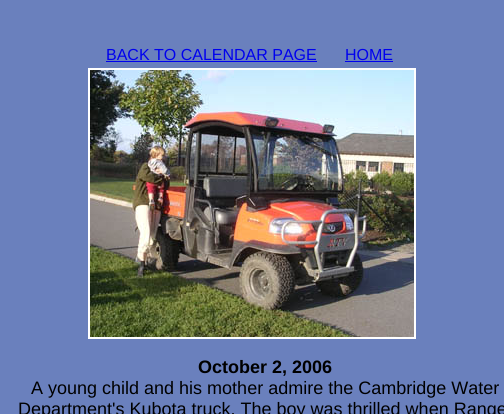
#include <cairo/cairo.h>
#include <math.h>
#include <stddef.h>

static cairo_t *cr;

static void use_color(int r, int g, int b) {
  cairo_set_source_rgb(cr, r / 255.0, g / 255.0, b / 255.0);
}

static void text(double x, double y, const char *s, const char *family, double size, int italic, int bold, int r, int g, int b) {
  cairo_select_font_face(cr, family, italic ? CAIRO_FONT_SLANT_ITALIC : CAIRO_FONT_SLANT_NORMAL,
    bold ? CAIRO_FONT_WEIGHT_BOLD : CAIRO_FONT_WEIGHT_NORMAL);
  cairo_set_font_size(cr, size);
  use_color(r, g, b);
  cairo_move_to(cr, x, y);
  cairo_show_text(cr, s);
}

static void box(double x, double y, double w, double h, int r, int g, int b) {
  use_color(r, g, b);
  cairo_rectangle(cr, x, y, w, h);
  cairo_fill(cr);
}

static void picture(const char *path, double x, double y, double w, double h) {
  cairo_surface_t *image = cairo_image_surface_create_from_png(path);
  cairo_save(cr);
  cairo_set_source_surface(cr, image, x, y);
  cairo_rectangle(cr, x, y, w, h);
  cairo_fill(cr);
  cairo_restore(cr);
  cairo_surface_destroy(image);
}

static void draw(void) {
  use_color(106, 128, 189);
  cairo_paint(cr);
  box(106, 61, 211, 1, 0, 0, 238);
  box(345, 61, 48, 1, 0, 0, 238);
  box(88, 68, 328, 271, 255, 255, 255);
  picture("img_01.png", 90, 70, 324, 267);
  text(106, 60, "BACK TO CALENDAR PAGE", "Liberation Sans", 16, 0, 0, 0, 0, 238);
  text(345, 60, "HOME", "Liberation Sans", 16, 0, 0, 0, 0, 238);
  text(198, 373, "October 2, 2006", "Liberation Sans", 18, 0, 1, 0, 0, 0);
  text(31, 394, "A young child and his mother admire the Cambridge Water", "Liberation Sans", 18, 0, 0, 0, 0, 0);
  text(18, 415, "Department's Kubota truck. The boy was thrilled when Range", "Liberation Sans", 18, 0, 0, 0, 0, 0);
}

int main(void) {
  cairo_surface_t *surface = cairo_image_surface_create(CAIRO_FORMAT_RGB24, 504, 414);
  cr = cairo_create(surface);
  cairo_font_options_t *options = cairo_font_options_create();
  cairo_font_options_set_hint_metrics(options, CAIRO_HINT_METRICS_OFF);
  cairo_font_options_set_hint_style(options, CAIRO_HINT_STYLE_NONE);
  cairo_set_font_options(cr, options);
  cairo_set_miter_limit(cr, 4);
  draw();
  cairo_surface_write_to_png(surface, "out.png");
  cairo_font_options_destroy(options);
  cairo_destroy(cr);
  cairo_surface_destroy(surface);
  return 0;
}
